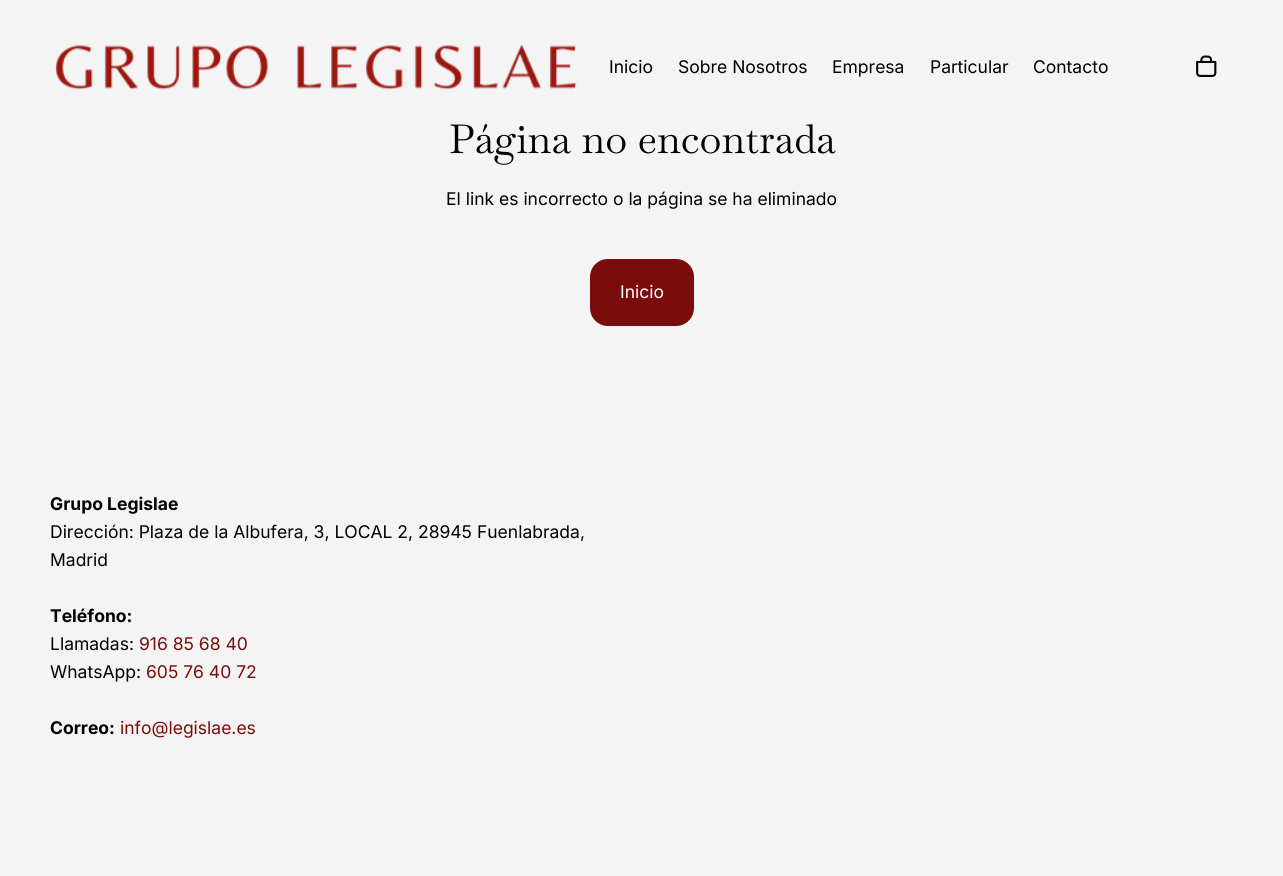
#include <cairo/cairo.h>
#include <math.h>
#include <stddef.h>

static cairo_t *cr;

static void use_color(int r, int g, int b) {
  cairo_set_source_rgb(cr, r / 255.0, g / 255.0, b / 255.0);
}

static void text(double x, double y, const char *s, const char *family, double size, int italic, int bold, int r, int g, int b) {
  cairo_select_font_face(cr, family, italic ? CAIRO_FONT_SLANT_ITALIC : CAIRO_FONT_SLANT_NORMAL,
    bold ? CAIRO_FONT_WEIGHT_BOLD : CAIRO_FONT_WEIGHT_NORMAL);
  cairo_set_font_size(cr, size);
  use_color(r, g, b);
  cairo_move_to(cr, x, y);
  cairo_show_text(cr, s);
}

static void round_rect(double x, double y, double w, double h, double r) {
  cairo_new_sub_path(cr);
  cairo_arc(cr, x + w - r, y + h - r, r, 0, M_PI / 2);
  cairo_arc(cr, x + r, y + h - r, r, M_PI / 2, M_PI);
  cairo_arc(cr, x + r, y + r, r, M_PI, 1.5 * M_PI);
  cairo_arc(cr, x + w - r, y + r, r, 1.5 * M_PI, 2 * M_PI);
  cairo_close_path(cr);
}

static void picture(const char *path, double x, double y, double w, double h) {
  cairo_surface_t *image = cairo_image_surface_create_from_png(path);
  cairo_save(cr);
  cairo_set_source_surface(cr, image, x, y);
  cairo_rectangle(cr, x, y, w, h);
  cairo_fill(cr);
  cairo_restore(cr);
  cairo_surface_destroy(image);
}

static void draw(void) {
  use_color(244, 244, 244);
  cairo_paint(cr);
  picture("img_01.png", 55, 44, 522, 46);
  picture("img_02.png", 1196, 55, 21, 22);
  use_color(122, 12, 12);
  round_rect(590, 259, 104, 67, 18);
  cairo_fill(cr);
  text(609, 73, "Inicio", "Inter", 17.5, 0, 0, 0, 0, 0);
  text(678, 73, "Sobre Nosotros", "Inter", 17.5, 0, 0, 0, 0, 0);
  text(832, 73, "Empresa", "Inter", 17.5, 0, 0, 0, 0, 0);
  text(930, 73, "Particular", "Inter", 17.5, 0, 0, 0, 0, 0);
  text(1033, 73, "Contacto", "Inter", 17.5, 0, 0, 0, 0, 0);
  text(449, 153, "Página no encontrada", "Baskervville", 40, 0, 0, 0, 0, 0);
  text(446, 205, "El link es incorrecto o la página se ha eliminado", "Inter", 17.5, 0, 0, 0, 0, 0);
  text(620, 298, "Inicio", "Inter", 17.5, 0, 0, 255, 255, 255);
  text(50, 510, "Grupo Legislae", "Inter", 17.5, 0, 1, 0, 0, 0);
  text(50, 538, "Dirección: Plaza de la Albufera, 3, LOCAL 2, 28945 Fuenlabrada,", "Inter", 17.5, 0, 0, 0, 0, 0);
  text(50, 566, "Madrid", "Inter", 17.5, 0, 0, 0, 0, 0);
  text(50, 622, "Teléfono:", "Inter", 17.5, 0, 1, 0, 0, 0);
  text(50, 650, "Llamadas:", "Inter", 17.5, 0, 0, 0, 0, 0);
  text(139, 650, "916 85 68 40", "Inter", 17.5, 0, 0, 122, 12, 12);
  text(50, 678, "WhatsApp:", "Inter", 17.5, 0, 0, 0, 0, 0);
  text(146, 678, "605 76 40 72", "Inter", 17.5, 0, 0, 122, 12, 12);
  text(50, 734, "Correo:", "Inter", 17.5, 0, 1, 0, 0, 0);
  text(120, 734, "info@legislae.es", "Inter", 17.5, 0, 0, 122, 12, 12);
}

int main(void) {
  cairo_surface_t *surface = cairo_image_surface_create(CAIRO_FORMAT_RGB24, 1283, 876);
  cr = cairo_create(surface);
  cairo_font_options_t *options = cairo_font_options_create();
  cairo_font_options_set_hint_metrics(options, CAIRO_HINT_METRICS_OFF);
  cairo_font_options_set_hint_style(options, CAIRO_HINT_STYLE_NONE);
  cairo_set_font_options(cr, options);
  cairo_set_miter_limit(cr, 4);
  draw();
  cairo_surface_write_to_png(surface, "out.png");
  cairo_font_options_destroy(options);
  cairo_destroy(cr);
  cairo_surface_destroy(surface);
  return 0;
}
